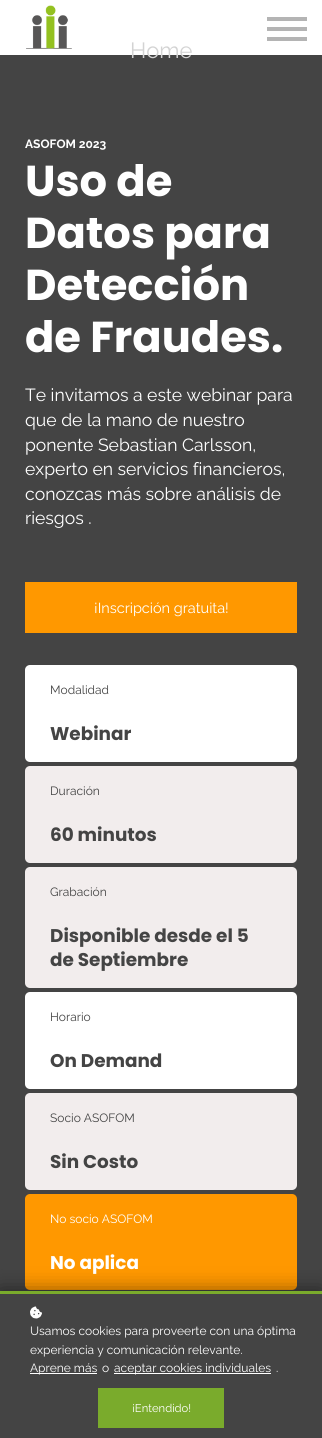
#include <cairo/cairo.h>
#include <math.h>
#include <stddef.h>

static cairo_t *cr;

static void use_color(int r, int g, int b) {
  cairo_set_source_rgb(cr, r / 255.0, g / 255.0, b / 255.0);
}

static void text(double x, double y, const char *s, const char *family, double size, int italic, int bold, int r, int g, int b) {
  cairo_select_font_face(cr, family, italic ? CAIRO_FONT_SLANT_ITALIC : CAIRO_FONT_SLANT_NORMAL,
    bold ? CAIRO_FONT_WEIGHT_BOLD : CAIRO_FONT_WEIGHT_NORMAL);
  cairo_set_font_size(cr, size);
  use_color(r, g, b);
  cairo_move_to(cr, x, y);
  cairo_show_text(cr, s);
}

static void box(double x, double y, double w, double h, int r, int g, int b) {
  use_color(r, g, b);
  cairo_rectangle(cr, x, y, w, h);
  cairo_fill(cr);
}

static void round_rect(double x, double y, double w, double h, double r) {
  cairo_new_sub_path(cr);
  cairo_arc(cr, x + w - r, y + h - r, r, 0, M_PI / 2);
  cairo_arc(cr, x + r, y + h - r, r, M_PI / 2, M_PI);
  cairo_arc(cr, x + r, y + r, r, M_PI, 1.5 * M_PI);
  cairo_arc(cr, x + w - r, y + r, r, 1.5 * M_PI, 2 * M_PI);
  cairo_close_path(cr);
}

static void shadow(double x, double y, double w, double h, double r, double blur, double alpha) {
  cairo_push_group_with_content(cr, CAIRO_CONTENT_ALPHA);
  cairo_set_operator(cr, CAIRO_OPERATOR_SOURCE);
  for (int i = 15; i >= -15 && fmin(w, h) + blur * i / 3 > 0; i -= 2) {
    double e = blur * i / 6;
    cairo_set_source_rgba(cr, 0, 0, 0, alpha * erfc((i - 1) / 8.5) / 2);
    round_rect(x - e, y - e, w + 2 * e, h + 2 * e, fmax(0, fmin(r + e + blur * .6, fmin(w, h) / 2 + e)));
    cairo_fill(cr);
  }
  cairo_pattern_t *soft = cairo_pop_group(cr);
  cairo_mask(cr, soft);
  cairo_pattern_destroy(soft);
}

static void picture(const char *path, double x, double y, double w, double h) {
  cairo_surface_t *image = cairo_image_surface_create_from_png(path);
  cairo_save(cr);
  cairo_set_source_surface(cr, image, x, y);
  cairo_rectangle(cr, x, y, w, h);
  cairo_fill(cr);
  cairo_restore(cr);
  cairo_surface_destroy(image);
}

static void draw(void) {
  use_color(255, 255, 255);
  cairo_paint(cr);
  picture("img_01.png", 26, 5, 46, 44);
  box(267, 37, 40, 4, 180, 180, 180);
  box(267, 17, 40, 4, 180, 180, 180);
  box(267, 27, 40, 4, 180, 180, 180);
  box(0, 55, 322, 1236, 68, 68, 68);
  box(25, 582, 272, 51, 255, 152, 0);
  use_color(255, 255, 255);
  round_rect(25, 665, 272, 97, 5);
  cairo_fill(cr);
  use_color(242, 237, 237);
  round_rect(25, 766, 272, 97, 5);
  cairo_fill(cr);
  round_rect(25, 867, 272, 121, 5);
  cairo_fill(cr);
  use_color(255, 255, 255);
  round_rect(25, 992, 272, 97, 5);
  cairo_fill(cr);
  use_color(242, 237, 237);
  round_rect(25, 1093, 272, 97, 5);
  cairo_fill(cr);
  use_color(255, 152, 0);
  round_rect(25, 1194, 272, 96, 5);
  cairo_fill(cr);
  use_color(0, 0, 0);
  shadow(0, 1291, 322, 147, 0, 10, 0.5);
  box(0, 1294, 322, 144, 68, 68, 68);
  box(0, 1291, 322, 3, 122, 171, 44);
  picture("img_02.png", 30, 1306, 12, 13);
  box(30, 1373, 67, 1, 255, 255, 255);
  box(114, 1373, 157, 1, 255, 255, 255);
  box(98, 1388, 126, 40, 122, 171, 44);
  text(130, 58, "Home", "Raleway", 22, 0, 0, 211, 211, 211);
  text(25, 148, "ASOFOM 2023", "Raleway", 12, 0, 1, 255, 255, 255);
  text(25, 196, "Uso de", "Poppins", 43.25, 0, 1, 255, 255, 255);
  text(25, 248, "Datos para", "Poppins", 43.25, 0, 1, 255, 255, 255);
  text(25, 300, "Detección", "Poppins", 43.25, 0, 1, 255, 255, 255);
  text(25, 352, "de Fraudes.", "Poppins", 43.25, 0, 1, 255, 255, 255);
  text(25, 401, "Te invitamos a este webinar para", "Raleway", 17.6, 0, 0, 255, 255, 255);
  text(25, 426, "que de la mano de nuestro", "Raleway", 17.6, 0, 0, 255, 255, 255);
  text(25, 451, "ponente Sebastian Carlsson,", "Raleway", 17.6, 0, 0, 255, 255, 255);
  text(25, 475, "experto en servicios financieros,", "Raleway", 17.6, 0, 0, 255, 255, 255);
  text(25, 500, "conozcas más sobre análisis de", "Raleway", 17.6, 0, 0, 255, 255, 255);
  text(25, 524, "riesgos .", "Raleway", 17.6, 0, 0, 255, 255, 255);
  text(94, 613, "¡Inscripción gratuita!", "Raleway", 14.5, 0, 0, 255, 255, 255);
  text(50, 694, "Modalidad", "Raleway", 12, 0, 0, 68, 68, 68);
  text(50, 740, "Webinar", "Poppins", 18.4, 0, 1, 68, 68, 68);
  text(50, 795, "Duración", "Raleway", 12, 0, 0, 68, 68, 68);
  text(50, 841, "60 minutos", "Poppins", 18.4, 0, 1, 68, 68, 68);
  text(50, 896, "Grabación", "Raleway", 12, 0, 0, 68, 68, 68);
  text(50, 942, "Disponible desde el 5", "Poppins", 18.4, 0, 1, 68, 68, 68);
  text(50, 966, "de Septiembre", "Poppins", 18.4, 0, 1, 68, 68, 68);
  text(50, 1021, "Horario", "Raleway", 12, 0, 0, 68, 68, 68);
  text(50, 1067, "On Demand", "Poppins", 18.4, 0, 1, 68, 68, 68);
  text(50, 1122, "Socio ASOFOM", "Raleway", 12, 0, 0, 68, 68, 68);
  text(50, 1168, "Sin Costo", "Poppins", 18.4, 0, 1, 68, 68, 68);
  text(50, 1223, "No socio ASOFOM", "Raleway", 12, 0, 0, 255, 255, 255);
  text(50, 1269, "No aplica", "Poppins", 18.4, 0, 1, 255, 255, 255);
  text(30, 1335, "Usamos cookies para proveerte con una óptima", "Raleway", 12, 0, 0, 255, 255, 255);
  text(30, 1354, "experiencia y comunicación relevante.", "Raleway", 12, 0, 0, 255, 255, 255);
  text(30, 1372, "Aprene más", "Raleway", 12, 0, 0, 255, 255, 255);
  text(102, 1372, "o", "Raleway", 12, 0, 0, 255, 255, 255);
  text(114, 1372, "aceptar cookies individuales", "Raleway", 12, 0, 0, 255, 255, 255);
  text(276, 1372, ".", "Raleway", 12, 0, 0, 255, 255, 255);
  text(132, 1412, "¡Entendido!", "Raleway", 11.25, 0, 0, 255, 255, 255);
}

int main(void) {
  cairo_surface_t *surface = cairo_image_surface_create(CAIRO_FORMAT_RGB24, 322, 1438);
  cr = cairo_create(surface);
  cairo_font_options_t *options = cairo_font_options_create();
  cairo_font_options_set_hint_metrics(options, CAIRO_HINT_METRICS_OFF);
  cairo_font_options_set_hint_style(options, CAIRO_HINT_STYLE_NONE);
  cairo_set_font_options(cr, options);
  cairo_set_miter_limit(cr, 4);
  draw();
  cairo_surface_write_to_png(surface, "out.png");
  cairo_font_options_destroy(options);
  cairo_destroy(cr);
  cairo_surface_destroy(surface);
  return 0;
}
